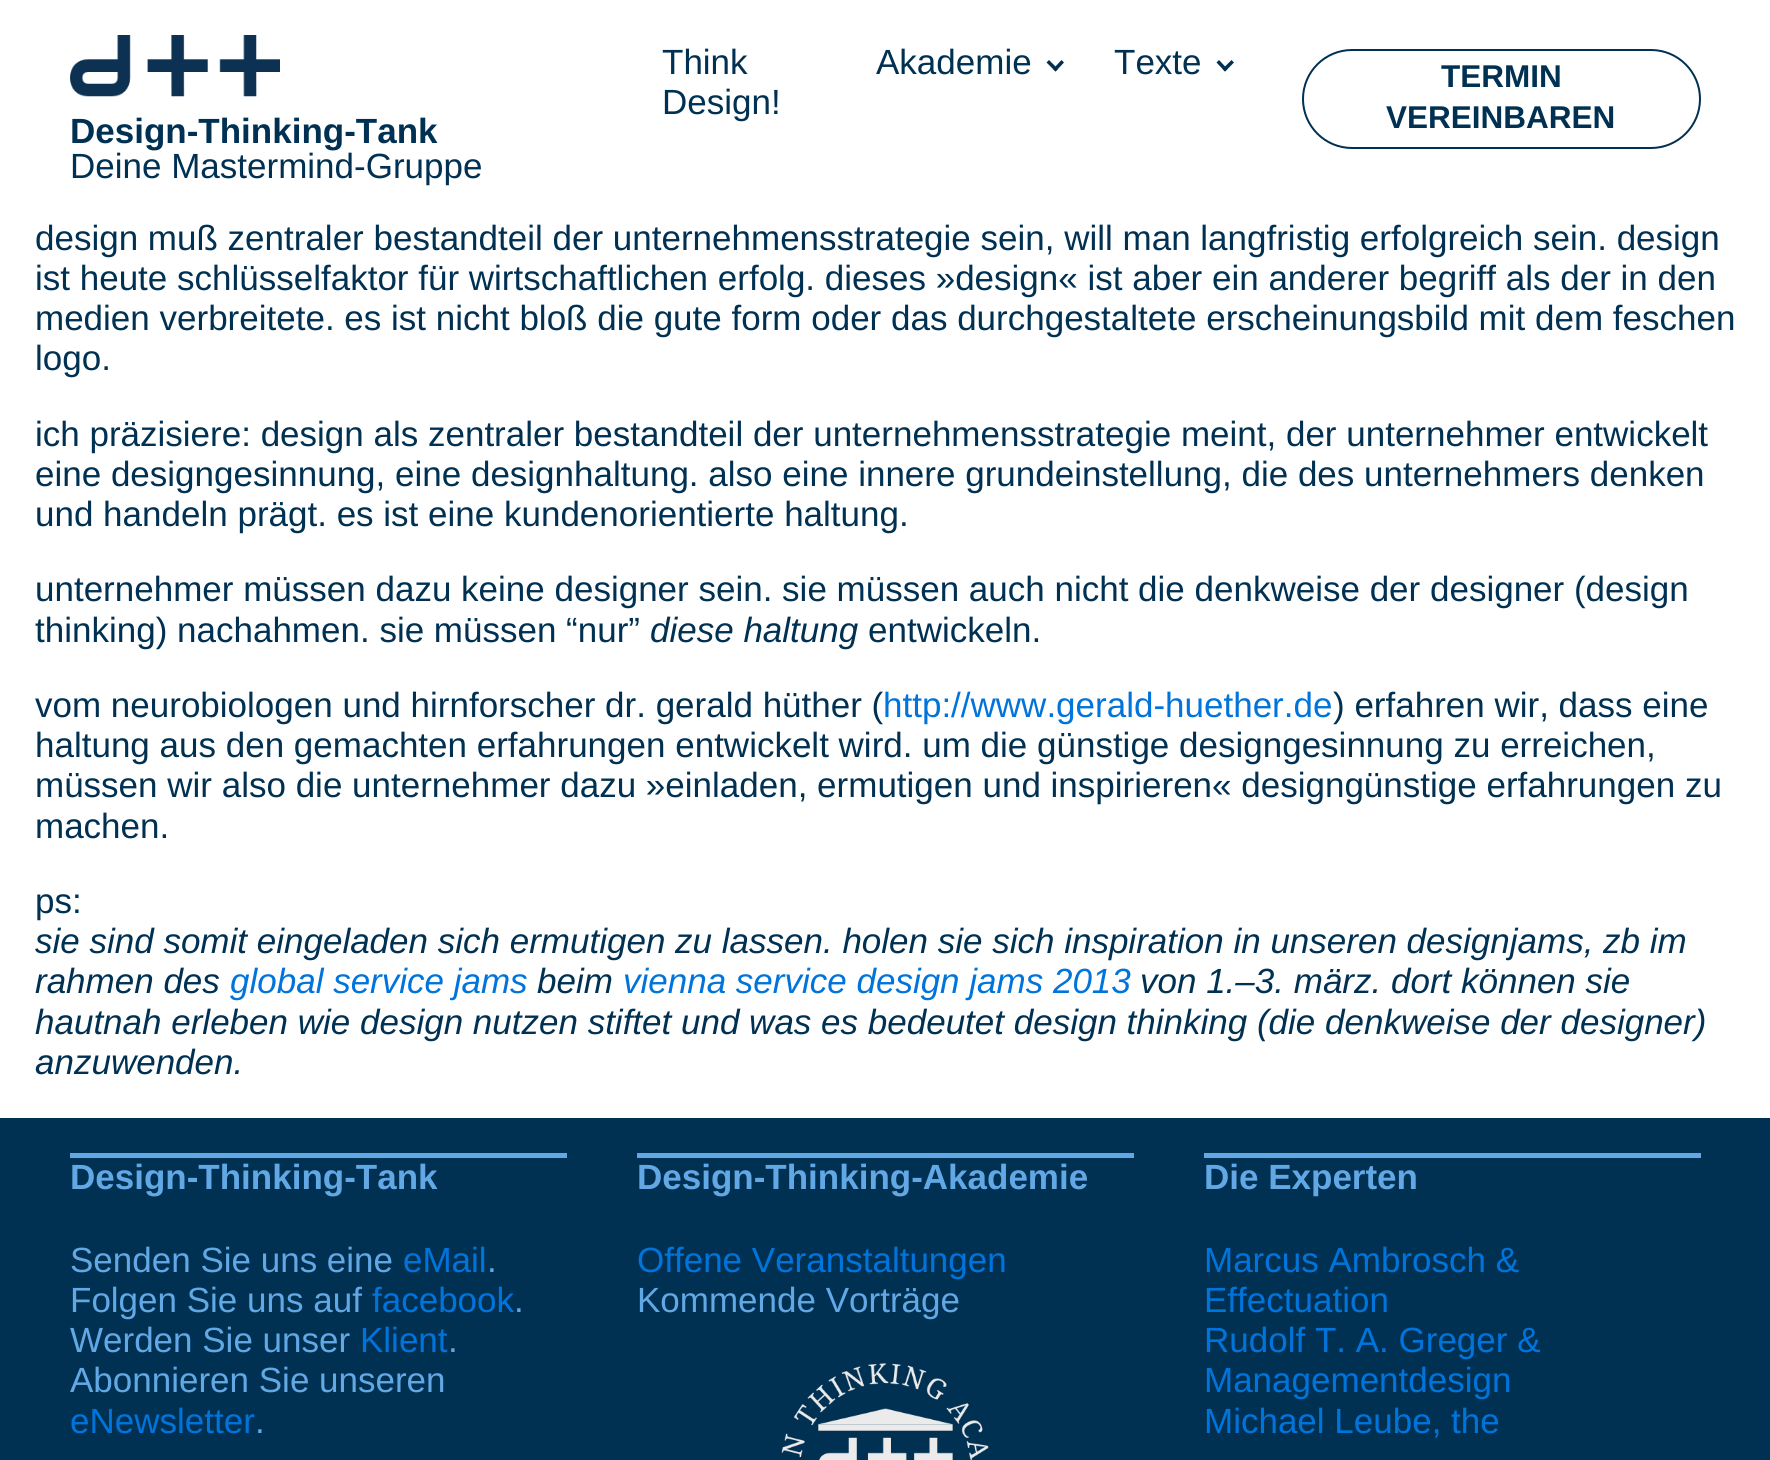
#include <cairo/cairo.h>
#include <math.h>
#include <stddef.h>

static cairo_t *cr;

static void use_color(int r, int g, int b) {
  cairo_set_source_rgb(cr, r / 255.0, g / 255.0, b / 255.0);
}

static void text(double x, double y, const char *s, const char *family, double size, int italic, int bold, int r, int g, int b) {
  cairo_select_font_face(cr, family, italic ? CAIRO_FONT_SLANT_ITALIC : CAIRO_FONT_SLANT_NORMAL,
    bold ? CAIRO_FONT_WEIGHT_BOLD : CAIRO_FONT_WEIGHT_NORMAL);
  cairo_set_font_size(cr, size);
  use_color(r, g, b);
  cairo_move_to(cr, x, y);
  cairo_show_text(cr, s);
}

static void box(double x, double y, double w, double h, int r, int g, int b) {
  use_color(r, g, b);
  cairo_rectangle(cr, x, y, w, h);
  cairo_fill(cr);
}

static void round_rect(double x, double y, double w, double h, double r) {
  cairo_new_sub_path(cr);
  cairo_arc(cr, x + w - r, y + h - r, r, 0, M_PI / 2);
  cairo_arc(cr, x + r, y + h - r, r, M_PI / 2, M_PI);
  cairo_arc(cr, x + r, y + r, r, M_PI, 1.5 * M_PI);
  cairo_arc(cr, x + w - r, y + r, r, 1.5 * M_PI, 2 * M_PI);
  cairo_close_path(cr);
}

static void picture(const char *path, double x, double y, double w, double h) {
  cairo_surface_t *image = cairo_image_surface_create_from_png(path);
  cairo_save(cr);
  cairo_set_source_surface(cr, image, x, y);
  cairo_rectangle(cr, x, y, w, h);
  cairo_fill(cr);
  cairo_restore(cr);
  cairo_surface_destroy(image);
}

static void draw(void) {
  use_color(255, 255, 255);
  cairo_paint(cr);
  use_color(0, 49, 83);
  cairo_new_path(cr);
  cairo_move_to(cr, 1064, 62.5);
  cairo_line_to(cr, 1055.5, 71.5);
  cairo_line_to(cr, 1053, 69);
  cairo_line_to(cr, 1061.5, 60);
  cairo_close_path(cr);
  cairo_fill(cr);
  cairo_new_path(cr);
  cairo_move_to(cr, 1058, 69);
  cairo_line_to(cr, 1055.5, 71.5);
  cairo_line_to(cr, 1046.5, 62.5);
  cairo_line_to(cr, 1049, 60);
  cairo_close_path(cr);
  cairo_fill(cr);
  cairo_new_path(cr);
  cairo_move_to(cr, 1234, 62.5);
  cairo_line_to(cr, 1225, 71.5);
  cairo_line_to(cr, 1222.5, 69);
  cairo_line_to(cr, 1231.5, 60);
  cairo_close_path(cr);
  cairo_fill(cr);
  cairo_new_path(cr);
  cairo_move_to(cr, 1227.5, 69);
  cairo_line_to(cr, 1225, 71.5);
  cairo_line_to(cr, 1216.5, 62.5);
  cairo_line_to(cr, 1219, 60);
  cairo_close_path(cr);
  cairo_fill(cr);
  round_rect(1303, 50, 397, 98, 49);
  cairo_stroke(cr);
  picture("img_01.png", 70, 35, 210, 62);
  box(0, 1118, 1770, 342, 0, 49, 83);
  box(70, 1153, 497, 5, 98, 168, 229);
  box(637, 1153, 497, 5, 98, 168, 229);
  picture("img_02.png", 781, 1363, 208, 97);
  box(1204, 1153, 497, 5, 98, 168, 229);
  text(662, 74, "Think", "Liberation Sans", 35, 0, 0, 0, 49, 83);
  text(662, 114, "Design!", "Liberation Sans", 35, 0, 0, 0, 49, 83);
  text(876, 74, "Akademie", "Liberation Sans", 35, 0, 0, 0, 49, 83);
  text(1114, 74, "Texte", "Liberation Sans", 35, 0, 0, 0, 49, 83);
  text(1441, 87, "TERMIN", "Liberation Sans", 31.5, 0, 1, 0, 49, 83);
  text(1386, 128, "VEREINBAREN", "Liberation Sans", 31.5, 0, 1, 0, 49, 83);
  text(70, 143, "Design-Thinking-Tank", "Liberation Sans", 35, 0, 1, 0, 49, 83);
  text(70, 178, "Deine Mastermind-Gruppe", "Liberation Sans", 35, 0, 0, 0, 49, 83);
  text(35, 250, "design muß zentraler bestandteil der unternehmensstrategie sein, will man langfristig erfolgreich sein. design", "Liberation Sans", 35, 0, 0, 0, 49, 83);
  text(35, 290, "ist heute schlüsselfaktor für wirtschaftlichen erfolg. dieses »design« ist aber ein anderer begriff als der in den", "Liberation Sans", 35, 0, 0, 0, 49, 83);
  text(35, 330, "medien verbreitete. es ist nicht bloß die gute form oder das durchgestaltete erscheinungsbild mit dem feschen", "Liberation Sans", 35, 0, 0, 0, 49, 83);
  text(35, 370, "logo.", "Liberation Sans", 35, 0, 0, 0, 49, 83);
  text(35, 446, "ich präzisiere: design als zentraler bestandteil der unternehmensstrategie meint, der unternehmer entwickelt", "Liberation Sans", 35, 0, 0, 0, 49, 83);
  text(35, 486, "eine designgesinnung, eine designhaltung. also eine innere grundeinstellung, die des unternehmers denken", "Liberation Sans", 35, 0, 0, 0, 49, 83);
  text(35, 526, "und handeln prägt. es ist eine kundenorientierte haltung.", "Liberation Sans", 35, 0, 0, 0, 49, 83);
  text(35, 601, "unternehmer müssen dazu keine designer sein. sie müssen auch nicht die denkweise der designer (design", "Liberation Sans", 35, 0, 0, 0, 49, 83);
  text(35, 642, "thinking) nachahmen. sie müssen “nur”", "Liberation Sans", 35, 0, 0, 0, 49, 83);
  text(650, 642, "diese haltung", "Liberation Sans", 35, 1, 0, 0, 49, 83);
  text(868, 642, "entwickeln.", "Liberation Sans", 35, 0, 0, 0, 49, 83);
  text(35, 717, "vom neurobiologen und hirnforscher dr. gerald hüther (", "Liberation Sans", 35, 0, 0, 0, 49, 83);
  text(883, 717, "http://www.gerald-huether.de", "Liberation Sans", 35, 0, 0, 0, 116, 219);
  text(1333, 717, ") erfahren wir, dass eine", "Liberation Sans", 35, 0, 0, 0, 49, 83);
  text(35, 757, "haltung aus den gemachten erfahrungen entwickelt wird. um die günstige designgesinnung zu erreichen,", "Liberation Sans", 35, 0, 0, 0, 49, 83);
  text(35, 797, "müssen wir also die unternehmer dazu »einladen, ermutigen und inspirieren« designgünstige erfahrungen zu", "Liberation Sans", 35, 0, 0, 0, 49, 83);
  text(35, 838, "machen.", "Liberation Sans", 35, 0, 0, 0, 49, 83);
  text(35, 913, "ps:", "Liberation Sans", 35, 0, 0, 0, 49, 83);
  text(35, 953, "sie sind somit eingeladen sich ermutigen zu lassen. holen sie sich inspiration in unseren designjams, zb im", "Liberation Sans", 35, 1, 0, 0, 49, 83);
  text(35, 993, "rahmen des", "Liberation Sans", 35, 1, 0, 0, 49, 83);
  text(230, 993, "global service jams", "Liberation Sans", 35, 1, 0, 0, 116, 219);
  text(537, 993, "beim", "Liberation Sans", 35, 1, 0, 0, 49, 83);
  text(623, 993, "vienna service design jams 2013", "Liberation Sans", 35, 1, 0, 0, 116, 219);
  text(1140, 993, "von 1.–3. märz. dort können sie", "Liberation Sans", 35, 1, 0, 0, 49, 83);
  text(35, 1034, "hautnah erleben wie design nutzen stiftet und was es bedeutet design thinking (die denkweise der designer)", "Liberation Sans", 35, 1, 0, 0, 49, 83);
  text(35, 1074, "anzuwenden.", "Liberation Sans", 35, 1, 0, 0, 49, 83);
  text(70, 1189, "Design-Thinking-Tank", "Liberation Sans", 35, 0, 1, 98, 168, 229);
  text(70, 1272, "Senden Sie uns eine", "Liberation Sans", 35, 0, 0, 98, 168, 229);
  text(403, 1272, "eMail", "Liberation Sans", 35, 0, 0, 0, 116, 219);
  text(487, 1272, ".", "Liberation Sans", 35, 0, 0, 98, 168, 229);
  text(70, 1312, "Folgen Sie uns auf", "Liberation Sans", 35, 0, 0, 98, 168, 229);
  text(372, 1312, "facebook", "Liberation Sans", 35, 0, 0, 0, 116, 219);
  text(514, 1312, ".", "Liberation Sans", 35, 0, 0, 98, 168, 229);
  text(70, 1352, "Werden Sie unser", "Liberation Sans", 35, 0, 0, 98, 168, 229);
  text(360, 1352, "Klient", "Liberation Sans", 35, 0, 0, 0, 116, 219);
  text(448, 1352, ".", "Liberation Sans", 35, 0, 0, 98, 168, 229);
  text(70, 1392, "Abonnieren Sie unseren", "Liberation Sans", 35, 0, 0, 98, 168, 229);
  text(70, 1433, "eNewsletter", "Liberation Sans", 35, 0, 0, 0, 116, 219);
  text(255, 1433, ".", "Liberation Sans", 35, 0, 0, 98, 168, 229);
  text(637, 1189, "Design-Thinking-Akademie", "Liberation Sans", 35, 0, 1, 98, 168, 229);
  text(637, 1272, "Offene Veranstaltungen", "Liberation Sans", 35, 0, 0, 0, 116, 219);
  text(637, 1312, "Kommende Vorträge", "Liberation Sans", 35, 0, 0, 98, 168, 229);
  text(1204, 1189, "Die Experten", "Liberation Sans", 35, 0, 1, 98, 168, 229);
  text(1204, 1272, "Marcus Ambrosch &", "Liberation Sans", 35, 0, 0, 0, 116, 219);
  text(1204, 1312, "Effectuation", "Liberation Sans", 35, 0, 0, 0, 116, 219);
  text(1204, 1352, "Rudolf T. A. Greger &", "Liberation Sans", 35, 0, 0, 0, 116, 219);
  text(1204, 1392, "Managementdesign", "Liberation Sans", 35, 0, 0, 0, 116, 219);
  text(1204, 1433, "Michael Leube, the", "Liberation Sans", 35, 0, 0, 0, 116, 219);
}

int main(void) {
  cairo_surface_t *surface = cairo_image_surface_create(CAIRO_FORMAT_RGB24, 1770, 1460);
  cr = cairo_create(surface);
  cairo_font_options_t *options = cairo_font_options_create();
  cairo_font_options_set_hint_metrics(options, CAIRO_HINT_METRICS_OFF);
  cairo_font_options_set_hint_style(options, CAIRO_HINT_STYLE_NONE);
  cairo_set_font_options(cr, options);
  cairo_set_miter_limit(cr, 4);
  draw();
  cairo_surface_write_to_png(surface, "out.png");
  cairo_font_options_destroy(options);
  cairo_destroy(cr);
  cairo_surface_destroy(surface);
  return 0;
}
